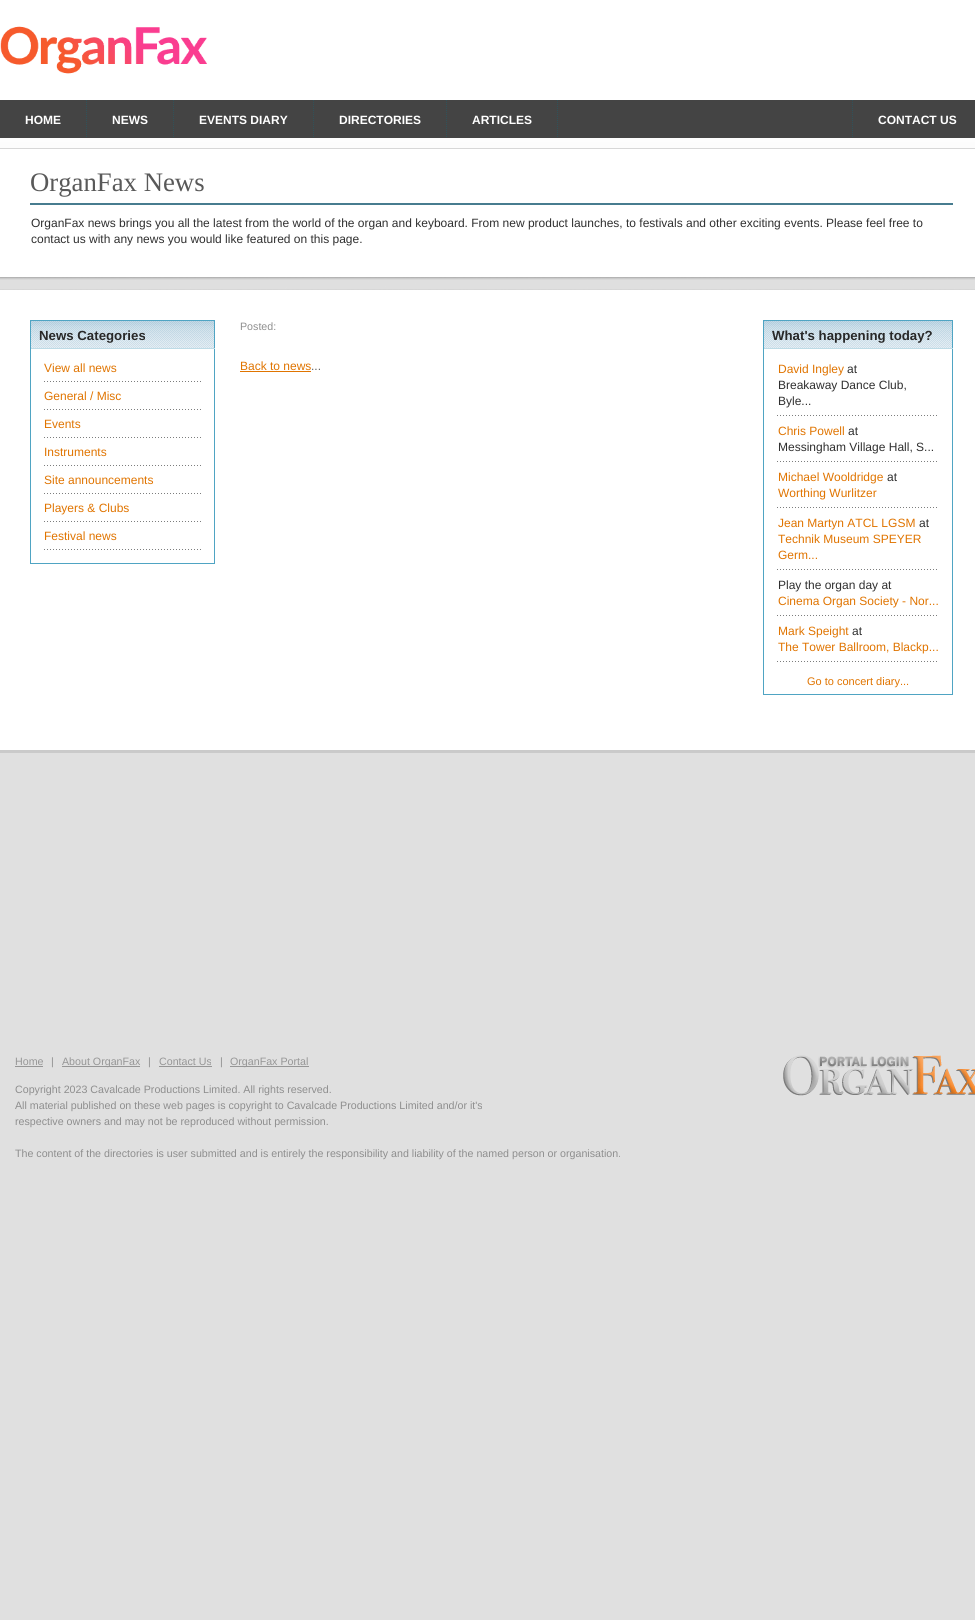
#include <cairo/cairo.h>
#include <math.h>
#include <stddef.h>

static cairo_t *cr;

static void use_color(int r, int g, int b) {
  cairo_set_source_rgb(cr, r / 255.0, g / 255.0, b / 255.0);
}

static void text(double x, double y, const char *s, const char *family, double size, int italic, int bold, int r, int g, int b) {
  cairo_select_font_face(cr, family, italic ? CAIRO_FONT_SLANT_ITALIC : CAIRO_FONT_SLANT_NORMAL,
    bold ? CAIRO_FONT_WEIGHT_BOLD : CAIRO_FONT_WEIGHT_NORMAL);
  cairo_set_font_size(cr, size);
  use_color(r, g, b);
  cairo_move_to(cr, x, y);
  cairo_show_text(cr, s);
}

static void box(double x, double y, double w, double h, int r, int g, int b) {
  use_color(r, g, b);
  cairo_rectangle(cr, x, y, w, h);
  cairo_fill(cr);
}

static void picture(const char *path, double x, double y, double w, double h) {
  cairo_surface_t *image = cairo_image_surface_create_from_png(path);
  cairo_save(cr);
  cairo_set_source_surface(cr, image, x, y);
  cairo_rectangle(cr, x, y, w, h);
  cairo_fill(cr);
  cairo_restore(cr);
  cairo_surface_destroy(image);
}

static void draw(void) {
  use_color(224, 224, 224);
  cairo_paint(cr);
  picture("img_01.png", 0, 0, 975, 148);
  picture("img_02.png", 0, 26, 207, 48);
  box(0, 100, 975, 38, 68, 68, 68);
  cairo_new_path(cr);
  cairo_move_to(cr, 86.5, 100);
  cairo_line_to(cr, 86.5, 138);
  use_color(47, 82, 90);
  cairo_set_line_width(cr, 1);
  cairo_set_dash(cr, (double[]){1, 1}, 2, 0);
  cairo_stroke(cr);
  cairo_new_path(cr);
  cairo_move_to(cr, 173.5, 100);
  cairo_line_to(cr, 173.5, 138);
  cairo_stroke(cr);
  cairo_new_path(cr);
  cairo_move_to(cr, 313.5, 100);
  cairo_line_to(cr, 313.5, 138);
  cairo_stroke(cr);
  cairo_new_path(cr);
  cairo_move_to(cr, 446.5, 100);
  cairo_line_to(cr, 446.5, 138);
  cairo_stroke(cr);
  cairo_new_path(cr);
  cairo_move_to(cr, 557.5, 100);
  cairo_line_to(cr, 557.5, 138);
  cairo_stroke(cr);
  cairo_new_path(cr);
  cairo_move_to(cr, 852.5, 100);
  cairo_line_to(cr, 852.5, 138);
  cairo_stroke(cr);
  box(0, 149, 975, 128, 255, 255, 255);
  box(0, 148, 975, 1, 215, 215, 215);
  box(30, 203, 923, 2, 71, 124, 143);
  picture("img_03.png", 0, 277, 975, 13);
  box(0, 290, 975, 460, 255, 255, 255);
  picture("img_04.png", 31, 321, 183, 27);
  box(30, 320, 185, 1, 79, 164, 195);
  box(214, 320, 1, 244, 79, 164, 195);
  box(30, 348, 185, 1, 190, 219, 230);
  box(30, 320, 1, 29, 79, 164, 195);
  box(30, 563, 185, 1, 79, 164, 195);
  box(30, 349, 1, 215, 79, 164, 195);
  picture("img_05.png", 44, 381, 157, 1);
  picture("img_05.png", 44, 409, 157, 1);
  picture("img_05.png", 44, 437, 157, 1);
  picture("img_05.png", 44, 465, 157, 1);
  picture("img_05.png", 44, 493, 157, 1);
  picture("img_05.png", 44, 521, 157, 1);
  picture("img_05.png", 44, 549, 157, 1);
  box(240, 371, 71, 1, 224, 116, 0);
  picture("img_06.png", 764, 321, 188, 27);
  box(763, 320, 190, 1, 79, 164, 195);
  box(952, 320, 1, 375, 79, 164, 195);
  box(763, 348, 190, 1, 190, 219, 230);
  box(763, 320, 1, 29, 79, 164, 195);
  box(763, 694, 190, 1, 79, 164, 195);
  box(763, 349, 1, 346, 79, 164, 195);
  picture("img_07.png", 777, 415, 160, 1);
  picture("img_07.png", 777, 461, 160, 1);
  picture("img_07.png", 777, 507, 160, 1);
  picture("img_07.png", 777, 569, 160, 1);
  picture("img_07.png", 777, 615, 160, 1);
  picture("img_07.png", 777, 661, 160, 1);
  box(0, 750, 975, 3, 202, 202, 202);
  box(15, 1066, 28, 1, 150, 150, 150);
  box(62, 1066, 78, 1, 150, 150, 150);
  box(159, 1066, 53, 1, 150, 150, 150);
  box(230, 1066, 79, 1, 150, 150, 150);
  picture("img_08.png", 783, 1055, 192, 41);
  text(25, 124, "HOME", "Liberation Sans", 12, 0, 1, 255, 255, 255);
  text(112, 124, "NEWS", "Liberation Sans", 12, 0, 1, 255, 255, 255);
  text(199, 124, "EVENTS DIARY", "Liberation Sans", 12, 0, 1, 255, 255, 255);
  text(339, 124, "DIRECTORIES", "Liberation Sans", 12, 0, 1, 255, 255, 255);
  text(472, 124, "ARTICLES", "Liberation Sans", 12, 0, 1, 255, 255, 255);
  text(878, 124, "CONTACT US", "Liberation Sans", 12, 0, 1, 255, 255, 255);
  text(30, 191, "OrganFax News", "Liberation Serif", 26.75, 0, 0, 89, 89, 89);
  text(31, 227, "OrganFax news brings you all the latest from the world of the organ and keyboard. From new product launches, to festivals and other exciting events. Please feel free to", "Liberation Sans", 12, 0, 0, 47, 47, 47);
  text(31, 243, "contact us with any news you would like featured on this page.", "Liberation Sans", 12, 0, 0, 47, 47, 47);
  text(39, 340, "News Categories", "Liberation Sans", 13.25, 0, 1, 40, 40, 40);
  text(44, 372, "View all news", "Liberation Sans", 12, 0, 0, 224, 116, 0);
  text(44, 400, "General / Misc", "Liberation Sans", 12, 0, 0, 224, 116, 0);
  text(44, 428, "Events", "Liberation Sans", 12, 0, 0, 224, 116, 0);
  text(44, 456, "Instruments", "Liberation Sans", 12, 0, 0, 224, 116, 0);
  text(44, 484, "Site announcements", "Liberation Sans", 12, 0, 0, 224, 116, 0);
  text(44, 512, "Players & Clubs", "Liberation Sans", 12, 0, 0, 224, 116, 0);
  text(44, 540, "Festival news", "Liberation Sans", 12, 0, 0, 224, 116, 0);
  text(240, 330, "Posted:", "Liberation Sans", 10.67, 0, 0, 142, 142, 142);
  text(240, 370, "Back to news", "Liberation Sans", 12, 0, 0, 224, 116, 0);
  text(311, 370, "...", "Liberation Sans", 12, 0, 0, 97, 97, 97);
  text(772, 340, "What's happening today?", "Liberation Sans", 13.25, 0, 1, 40, 40, 40);
  text(778, 373, "David Ingley", "Liberation Sans", 12, 0, 0, 224, 116, 0);
  text(847, 373, "at", "Liberation Sans", 12, 0, 0, 47, 47, 47);
  text(778, 389, "Breakaway Dance Club,", "Liberation Sans", 12, 0, 0, 47, 47, 47);
  text(778, 405, "Byle...", "Liberation Sans", 12, 0, 0, 47, 47, 47);
  text(778, 435, "Chris Powell", "Liberation Sans", 12, 0, 0, 224, 116, 0);
  text(848, 435, "at", "Liberation Sans", 12, 0, 0, 47, 47, 47);
  text(778, 451, "Messingham Village Hall, S...", "Liberation Sans", 12, 0, 0, 47, 47, 47);
  text(778, 481, "Michael Wooldridge", "Liberation Sans", 12, 0, 0, 224, 116, 0);
  text(887, 481, "at", "Liberation Sans", 12, 0, 0, 47, 47, 47);
  text(778, 497, "Worthing Wurlitzer", "Liberation Sans", 12, 0, 0, 224, 116, 0);
  text(778, 527, "Jean Martyn ATCL LGSM", "Liberation Sans", 12, 0, 0, 224, 116, 0);
  text(919, 527, "at", "Liberation Sans", 12, 0, 0, 47, 47, 47);
  text(778, 543, "Technik Museum SPEYER", "Liberation Sans", 12, 0, 0, 224, 116, 0);
  text(778, 559, "Germ...", "Liberation Sans", 12, 0, 0, 224, 116, 0);
  text(778, 589, "Play the organ day at", "Liberation Sans", 12, 0, 0, 47, 47, 47);
  text(778, 605, "Cinema Organ Society - Nor...", "Liberation Sans", 12, 0, 0, 224, 116, 0);
  text(778, 635, "Mark Speight", "Liberation Sans", 12, 0, 0, 224, 116, 0);
  text(852, 635, "at", "Liberation Sans", 12, 0, 0, 47, 47, 47);
  text(778, 651, "The Tower Ballroom, Blackp...", "Liberation Sans", 12, 0, 0, 224, 116, 0);
  text(807, 685, "Go to concert diary...", "Liberation Sans", 11, 0, 0, 224, 116, 0);
  text(15, 1065, "Home", "Liberation Sans", 10.67, 0, 0, 150, 150, 150);
  text(51, 1065, "|", "Liberation Sans", 10.67, 0, 0, 142, 142, 142);
  text(62, 1065, "About OrganFax", "Liberation Sans", 10.67, 0, 0, 150, 150, 150);
  text(148, 1065, "|", "Liberation Sans", 10.67, 0, 0, 142, 142, 142);
  text(159, 1065, "Contact Us", "Liberation Sans", 10.67, 0, 0, 150, 150, 150);
  text(220, 1065, "|", "Liberation Sans", 10.67, 0, 0, 142, 142, 142);
  text(230, 1065, "OrganFax Portal", "Liberation Sans", 10.67, 0, 0, 150, 150, 150);
  text(15, 1093, "Copyright 2023 Cavalcade Productions Limited. All rights reserved.", "Liberation Sans", 10.67, 0, 0, 142, 142, 142);
  text(15, 1109, "All material published on these web pages is copyright to Cavalcade Productions Limited and/or it's", "Liberation Sans", 10.67, 0, 0, 142, 142, 142);
  text(15, 1125, "respective owners and may not be reproduced without permission.", "Liberation Sans", 10.67, 0, 0, 142, 142, 142);
  text(15, 1157, "The content of the directories is user submitted and is entirely the responsibility and liability of the named person or organisation.", "Liberation Sans", 10.67, 0, 0, 142, 142, 142);
}

int main(void) {
  cairo_surface_t *surface = cairo_image_surface_create(CAIRO_FORMAT_RGB24, 975, 1620);
  cr = cairo_create(surface);
  cairo_font_options_t *options = cairo_font_options_create();
  cairo_font_options_set_hint_metrics(options, CAIRO_HINT_METRICS_OFF);
  cairo_font_options_set_hint_style(options, CAIRO_HINT_STYLE_NONE);
  cairo_set_font_options(cr, options);
  cairo_set_miter_limit(cr, 4);
  draw();
  cairo_surface_write_to_png(surface, "out.png");
  cairo_font_options_destroy(options);
  cairo_destroy(cr);
  cairo_surface_destroy(surface);
  return 0;
}
